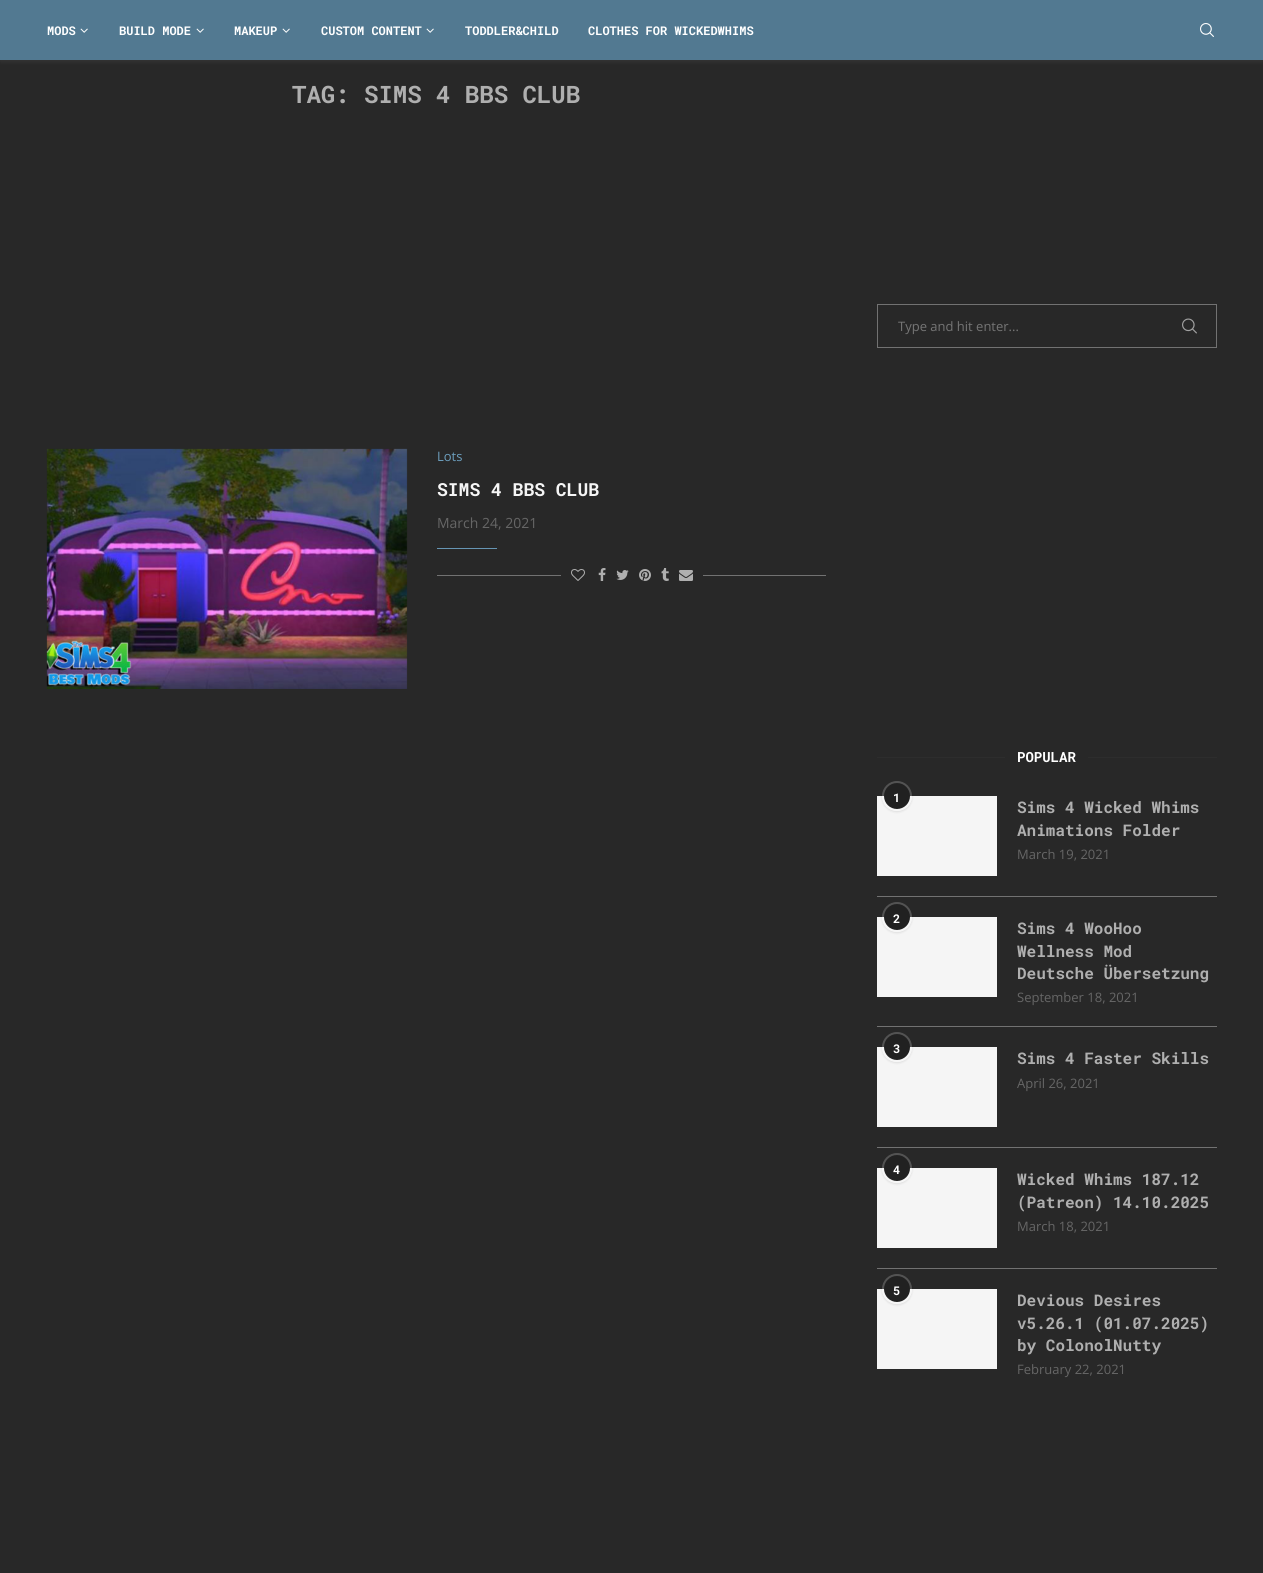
#include <cairo/cairo.h>
#include <math.h>
#include <stddef.h>

static cairo_t *cr;

static void use_color(int r, int g, int b) {
  cairo_set_source_rgb(cr, r / 255.0, g / 255.0, b / 255.0);
}

static void text(double x, double y, const char *s, const char *family, double size, int italic, int bold, int r, int g, int b) {
  cairo_select_font_face(cr, family, italic ? CAIRO_FONT_SLANT_ITALIC : CAIRO_FONT_SLANT_NORMAL,
    bold ? CAIRO_FONT_WEIGHT_BOLD : CAIRO_FONT_WEIGHT_NORMAL);
  cairo_set_font_size(cr, size);
  use_color(r, g, b);
  cairo_move_to(cr, x, y);
  cairo_show_text(cr, s);
}

static void box(double x, double y, double w, double h, int r, int g, int b) {
  use_color(r, g, b);
  cairo_rectangle(cr, x, y, w, h);
  cairo_fill(cr);
}

static void round_rect(double x, double y, double w, double h, double r) {
  cairo_new_sub_path(cr);
  cairo_arc(cr, x + w - r, y + h - r, r, 0, M_PI / 2);
  cairo_arc(cr, x + r, y + h - r, r, M_PI / 2, M_PI);
  cairo_arc(cr, x + r, y + r, r, M_PI, 1.5 * M_PI);
  cairo_arc(cr, x + w - r, y + r, r, 1.5 * M_PI, 2 * M_PI);
  cairo_close_path(cr);
}

static void shadow(double x, double y, double w, double h, double r, double blur, double alpha) {
  cairo_push_group_with_content(cr, CAIRO_CONTENT_ALPHA);
  cairo_set_operator(cr, CAIRO_OPERATOR_SOURCE);
  for (int i = 15; i >= -15 && fmin(w, h) + blur * i / 3 > 0; i -= 2) {
    double e = blur * i / 6;
    cairo_set_source_rgba(cr, 0, 0, 0, alpha * erfc((i - 1) / 8.5) / 2);
    round_rect(x - e, y - e, w + 2 * e, h + 2 * e, fmax(0, fmin(r + e + blur * .6, fmin(w, h) / 2 + e)));
    cairo_fill(cr);
  }
  cairo_pattern_t *soft = cairo_pop_group(cr);
  cairo_mask(cr, soft);
  cairo_pattern_destroy(soft);
}

static void picture(const char *path, double x, double y, double w, double h) {
  cairo_surface_t *image = cairo_image_surface_create_from_png(path);
  cairo_save(cr);
  cairo_set_source_surface(cr, image, x, y);
  cairo_rectangle(cr, x, y, w, h);
  cairo_fill(cr);
  cairo_restore(cr);
  cairo_surface_destroy(image);
}

static void draw(void) {
  use_color(40, 40, 40);
  cairo_paint(cr);
  use_color(255, 255, 255);
  shadow(0, 1, 1263, 60, 0, 2.5, 0.08);
  box(0, 0, 1263, 60, 82, 121, 145);
  picture("img_01.png", 80, 28, 8, 5);
  picture("img_01.png", 196, 28, 8, 5);
  picture("img_01.png", 282, 28, 8, 5);
  picture("img_01.png", 426, 28, 8, 5);
  picture("img_02.png", 1200, 23, 14, 14);
  picture("img_03.png", 46, 448, 362, 241);
  box(437, 548, 60, 1, 102, 149, 179);
  box(437, 575, 389, 1, 114, 114, 114);
  box(561, 575, 142, 1, 40, 40, 40);
  picture("img_04.png", 571, 569, 14, 12);
  picture("img_05.png", 598, 568, 8, 13);
  picture("img_06.png", 616, 570, 13, 10);
  picture("img_07.png", 639, 569, 12, 12);
  picture("img_08.png", 661, 568, 8, 13);
  picture("img_09.png", 679, 570, 14, 11);
  cairo_rectangle(cr, 877.5, 304.5, 339, 43);
  use_color(114, 114, 114);
  cairo_set_line_width(cr, 1);
  cairo_stroke(cr);
  picture("img_10.png", 1182, 318, 15, 16);
  box(877, 757, 128, 1, 45, 45, 45);
  box(1088, 757, 129, 1, 45, 45, 45);
  box(877, 896, 340, 1, 114, 114, 114);
  box(877, 796, 120, 80, 245, 245, 245);
  cairo_save(cr);
  cairo_set_fill_rule(cr, CAIRO_FILL_RULE_EVEN_ODD);
  cairo_new_path(cr);
  cairo_move_to(cr, 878, 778);
  cairo_line_to(cr, 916, 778);
  cairo_line_to(cr, 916, 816);
  cairo_line_to(cr, 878, 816);
  cairo_close_path(cr);
  cairo_move_to(cr, 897, 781);
  cairo_curve_to(cr, 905.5, 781, 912, 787.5, 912, 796);
  cairo_curve_to(cr, 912, 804.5, 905.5, 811, 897, 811);
  cairo_curve_to(cr, 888.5, 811, 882, 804.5, 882, 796);
  cairo_curve_to(cr, 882, 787.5, 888.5, 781, 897, 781);
  cairo_close_path(cr);
  cairo_clip(cr);
  use_color(0, 0, 0);
  shadow(882, 782, 30, 30, 15, 1, 0.1);
  cairo_restore(cr);
  cairo_set_source_rgba(cr, 1, 1, 1, 0.2);
  cairo_arc(cr, 897, 796, 15, 0, 2 * M_PI);
  cairo_fill(cr);
  use_color(33, 33, 33);
  cairo_arc(cr, 897, 796, 13, 0, 2 * M_PI);
  cairo_fill(cr);
  box(877, 1026, 340, 1, 114, 114, 114);
  box(877, 917, 120, 80, 245, 245, 245);
  cairo_save(cr);
  cairo_set_fill_rule(cr, CAIRO_FILL_RULE_EVEN_ODD);
  cairo_new_path(cr);
  cairo_move_to(cr, 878, 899);
  cairo_line_to(cr, 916, 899);
  cairo_line_to(cr, 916, 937);
  cairo_line_to(cr, 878, 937);
  cairo_close_path(cr);
  cairo_move_to(cr, 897, 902);
  cairo_curve_to(cr, 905.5, 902, 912, 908.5, 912, 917);
  cairo_curve_to(cr, 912, 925.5, 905.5, 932, 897, 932);
  cairo_curve_to(cr, 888.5, 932, 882, 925.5, 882, 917);
  cairo_curve_to(cr, 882, 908.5, 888.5, 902, 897, 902);
  cairo_close_path(cr);
  cairo_clip(cr);
  use_color(0, 0, 0);
  shadow(882, 903, 30, 30, 15, 1, 0.1);
  cairo_restore(cr);
  cairo_set_source_rgba(cr, 1, 1, 1, 0.2);
  cairo_arc(cr, 897, 917, 15, 0, 2 * M_PI);
  cairo_fill(cr);
  use_color(33, 33, 33);
  cairo_arc(cr, 897, 917, 13, 0, 2 * M_PI);
  cairo_fill(cr);
  box(877, 1147, 340, 1, 114, 114, 114);
  box(877, 1047, 120, 80, 245, 245, 245);
  cairo_save(cr);
  cairo_set_fill_rule(cr, CAIRO_FILL_RULE_EVEN_ODD);
  cairo_new_path(cr);
  cairo_move_to(cr, 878, 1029);
  cairo_line_to(cr, 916, 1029);
  cairo_line_to(cr, 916, 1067);
  cairo_line_to(cr, 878, 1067);
  cairo_close_path(cr);
  cairo_move_to(cr, 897, 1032);
  cairo_curve_to(cr, 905.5, 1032, 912, 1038.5, 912, 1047);
  cairo_curve_to(cr, 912, 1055.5, 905.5, 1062, 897, 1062);
  cairo_curve_to(cr, 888.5, 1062, 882, 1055.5, 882, 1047);
  cairo_curve_to(cr, 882, 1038.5, 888.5, 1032, 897, 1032);
  cairo_close_path(cr);
  cairo_clip(cr);
  use_color(0, 0, 0);
  shadow(882, 1033, 30, 30, 15, 1, 0.1);
  cairo_restore(cr);
  cairo_set_source_rgba(cr, 1, 1, 1, 0.2);
  cairo_arc(cr, 897, 1047, 15, 0, 2 * M_PI);
  cairo_fill(cr);
  use_color(33, 33, 33);
  cairo_arc(cr, 897, 1047, 13, 0, 2 * M_PI);
  cairo_fill(cr);
  box(877, 1268, 340, 1, 114, 114, 114);
  box(877, 1168, 120, 80, 245, 245, 245);
  cairo_save(cr);
  cairo_set_fill_rule(cr, CAIRO_FILL_RULE_EVEN_ODD);
  cairo_new_path(cr);
  cairo_move_to(cr, 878, 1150);
  cairo_line_to(cr, 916, 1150);
  cairo_line_to(cr, 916, 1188);
  cairo_line_to(cr, 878, 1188);
  cairo_close_path(cr);
  cairo_move_to(cr, 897, 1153);
  cairo_curve_to(cr, 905.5, 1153, 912, 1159.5, 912, 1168);
  cairo_curve_to(cr, 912, 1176.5, 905.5, 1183, 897, 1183);
  cairo_curve_to(cr, 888.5, 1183, 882, 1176.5, 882, 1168);
  cairo_curve_to(cr, 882, 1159.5, 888.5, 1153, 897, 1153);
  cairo_close_path(cr);
  cairo_clip(cr);
  use_color(0, 0, 0);
  shadow(882, 1154, 30, 30, 15, 1, 0.1);
  cairo_restore(cr);
  cairo_set_source_rgba(cr, 1, 1, 1, 0.2);
  cairo_arc(cr, 897, 1168, 15, 0, 2 * M_PI);
  cairo_fill(cr);
  use_color(33, 33, 33);
  cairo_arc(cr, 897, 1168, 13, 0, 2 * M_PI);
  cairo_fill(cr);
  box(877, 1289, 120, 80, 245, 245, 245);
  cairo_save(cr);
  cairo_set_fill_rule(cr, CAIRO_FILL_RULE_EVEN_ODD);
  cairo_new_path(cr);
  cairo_move_to(cr, 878, 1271);
  cairo_line_to(cr, 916, 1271);
  cairo_line_to(cr, 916, 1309);
  cairo_line_to(cr, 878, 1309);
  cairo_close_path(cr);
  cairo_move_to(cr, 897, 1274);
  cairo_curve_to(cr, 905.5, 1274, 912, 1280.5, 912, 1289);
  cairo_curve_to(cr, 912, 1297.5, 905.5, 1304, 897, 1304);
  cairo_curve_to(cr, 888.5, 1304, 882, 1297.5, 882, 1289);
  cairo_curve_to(cr, 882, 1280.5, 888.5, 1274, 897, 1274);
  cairo_close_path(cr);
  cairo_clip(cr);
  use_color(0, 0, 0);
  shadow(882, 1275, 30, 30, 15, 1, 0.1);
  cairo_restore(cr);
  cairo_set_source_rgba(cr, 1, 1, 1, 0.2);
  cairo_arc(cr, 897, 1289, 15, 0, 2 * M_PI);
  cairo_fill(cr);
  use_color(33, 33, 33);
  cairo_arc(cr, 897, 1289, 13, 0, 2 * M_PI);
  cairo_fill(cr);
  text(47, 35, "MODS", "Roboto Mono", 12, 0, 1, 255, 255, 255);
  text(119, 35, "BUILD MODE", "Roboto Mono", 12, 0, 1, 255, 255, 255);
  text(234, 35, "MAKEUP", "Roboto Mono", 12, 0, 1, 255, 255, 255);
  text(321, 35, "CUSTOM CONTENT", "Roboto Mono", 12, 0, 1, 255, 255, 255);
  text(465, 35, "TODDLER&CHILD", "Roboto Mono", 12, 0, 1, 255, 255, 255);
  text(588, 35, "CLOTHES FOR WICKEDWHIMS", "Roboto Mono", 12, 0, 1, 255, 255, 255);
  text(292, 103, "TAG: SIMS 4 BBS CLUB", "Roboto Mono", 24, 0, 1, 175, 175, 175);
  text(437, 461, "Lots", "Open Sans", 13, 0, 0, 108, 158, 189);
  text(437, 496, "SIMS 4 BBS CLUB", "Roboto Mono", 18, 0, 1, 245, 245, 245);
  text(437, 528, "March 24, 2021", "Open Sans", 14, 0, 0, 102, 102, 102);
  text(898, 331, "Type and hit enter...", "Open Sans", 13, 0, 0, 117, 117, 117);
  text(1017, 762, "POPULAR", "Roboto Mono", 14, 0, 1, 255, 255, 255);
  text(893, 802, "1", "Roboto Mono", 12, 0, 1, 255, 255, 255);
  text(1017, 813, "Sims 4 Wicked Whims", "Roboto Mono", 16, 0, 1, 175, 175, 175);
  text(1017, 836, "Animations Folder", "Roboto Mono", 16, 0, 1, 175, 175, 175);
  text(1017, 859, "March 19, 2021", "Open Sans", 13, 0, 0, 102, 102, 102);
  text(893, 923, "2", "Roboto Mono", 12, 0, 1, 255, 255, 255);
  text(1017, 934, "Sims 4 WooHoo", "Roboto Mono", 16, 0, 1, 175, 175, 175);
  text(1017, 957, "Wellness Mod", "Roboto Mono", 16, 0, 1, 175, 175, 175);
  text(1017, 979, "Deutsche Übersetzung", "Roboto Mono", 16, 0, 1, 175, 175, 175);
  text(1017, 1002, "September 18, 2021", "Open Sans", 13, 0, 0, 102, 102, 102);
  text(893, 1053, "3", "Roboto Mono", 12, 0, 1, 255, 255, 255);
  text(1017, 1064, "Sims 4 Faster Skills", "Roboto Mono", 16, 0, 1, 175, 175, 175);
  text(1017, 1088, "April 26, 2021", "Open Sans", 13, 0, 0, 102, 102, 102);
  text(893, 1174, "4", "Roboto Mono", 12, 0, 1, 255, 255, 255);
  text(1017, 1185, "Wicked Whims 187.12", "Roboto Mono", 16, 0, 1, 175, 175, 175);
  text(1017, 1208, "(Patreon) 14.10.2025", "Roboto Mono", 16, 0, 1, 175, 175, 175);
  text(1017, 1231, "March 18, 2021", "Open Sans", 13, 0, 0, 102, 102, 102);
  text(893, 1295, "5", "Roboto Mono", 12, 0, 1, 255, 255, 255);
  text(1017, 1306, "Devious Desires", "Roboto Mono", 16, 0, 1, 175, 175, 175);
  text(1017, 1329, "v5.26.1 (01.07.2025)", "Roboto Mono", 16, 0, 1, 175, 175, 175);
  text(1017, 1351, "by ColonolNutty", "Roboto Mono", 16, 0, 1, 175, 175, 175);
  text(1017, 1374, "February 22, 2021", "Open Sans", 13, 0, 0, 102, 102, 102);
}

int main(void) {
  cairo_surface_t *surface = cairo_image_surface_create(CAIRO_FORMAT_RGB24, 1263, 1573);
  cr = cairo_create(surface);
  cairo_font_options_t *options = cairo_font_options_create();
  cairo_font_options_set_hint_metrics(options, CAIRO_HINT_METRICS_OFF);
  cairo_font_options_set_hint_style(options, CAIRO_HINT_STYLE_NONE);
  cairo_set_font_options(cr, options);
  cairo_set_miter_limit(cr, 4);
  draw();
  cairo_surface_write_to_png(surface, "out.png");
  cairo_font_options_destroy(options);
  cairo_destroy(cr);
  cairo_surface_destroy(surface);
  return 0;
}
